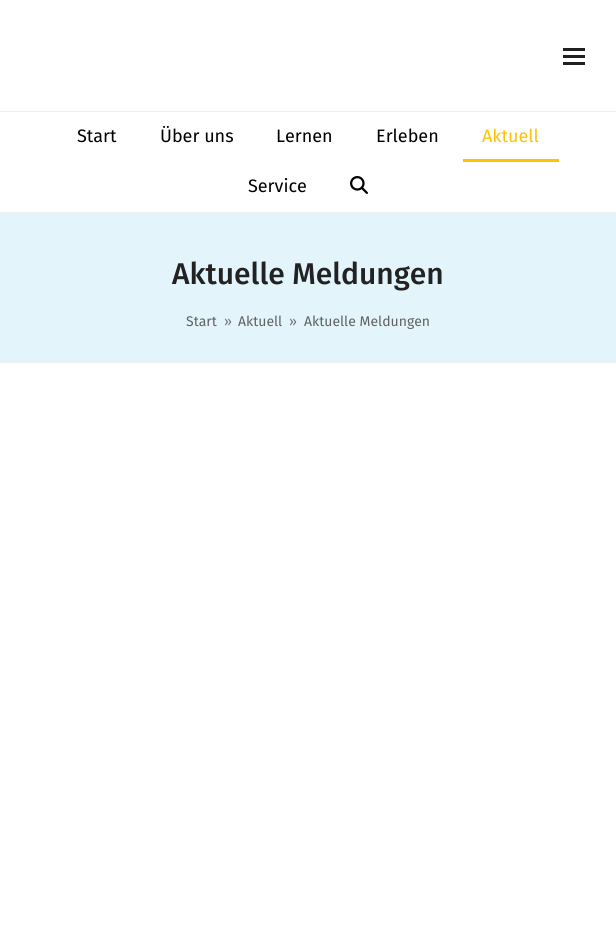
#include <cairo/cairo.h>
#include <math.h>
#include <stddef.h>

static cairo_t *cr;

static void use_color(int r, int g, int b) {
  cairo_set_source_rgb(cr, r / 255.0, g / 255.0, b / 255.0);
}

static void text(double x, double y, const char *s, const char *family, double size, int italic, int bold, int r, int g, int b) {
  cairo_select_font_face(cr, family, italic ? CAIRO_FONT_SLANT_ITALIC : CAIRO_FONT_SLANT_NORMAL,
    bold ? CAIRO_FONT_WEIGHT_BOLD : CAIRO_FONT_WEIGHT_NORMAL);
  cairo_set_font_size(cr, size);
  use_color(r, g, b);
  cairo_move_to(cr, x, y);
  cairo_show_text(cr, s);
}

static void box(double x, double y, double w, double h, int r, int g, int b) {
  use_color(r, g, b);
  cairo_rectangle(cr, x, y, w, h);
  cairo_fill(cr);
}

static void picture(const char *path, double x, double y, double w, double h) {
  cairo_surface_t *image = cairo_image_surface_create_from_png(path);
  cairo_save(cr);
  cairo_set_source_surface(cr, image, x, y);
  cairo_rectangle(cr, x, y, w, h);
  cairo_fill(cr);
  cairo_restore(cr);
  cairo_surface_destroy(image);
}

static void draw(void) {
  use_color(255, 255, 255);
  cairo_paint(cr);
  box(563, 55, 22, 3, 33, 33, 33);
  box(563, 48, 22, 3, 33, 33, 33);
  box(563, 62, 22, 3, 33, 33, 33);
  box(0, 111, 616, 1, 238, 238, 238);
  box(463, 159, 96, 3, 253, 195, 0);
  picture("img_01.png", 350, 176, 18, 18);
  box(0, 213, 616, 149, 227, 244, 250);
  box(0, 212, 616, 1, 238, 238, 238);
  box(0, 362, 616, 1, 238, 238, 238);
  text(77, 142, "Start", "Fira Sans", 18, 0, 0, 0, 0, 0);
  text(160, 142, "Über uns", "Fira Sans", 18, 0, 0, 0, 0, 0);
  text(276, 142, "Lernen", "Fira Sans", 18, 0, 0, 0, 0, 0);
  text(376, 142, "Erleben", "Fira Sans", 18, 0, 0, 0, 0, 0);
  text(482, 142, "Aktuell", "Fira Sans", 18, 0, 0, 253, 195, 0);
  text(248, 192, "Service", "Fira Sans", 18, 0, 0, 0, 0, 0);
  text(172, 284, "Aktuelle Meldungen", "Fira Sans Medium", 30, 0, 0, 34, 34, 34);
  text(186, 326, "Start", "Fira Sans", 14, 0, 0, 97, 97, 97);
  text(224, 326, "»", "Fira Sans", 14, 0, 0, 117, 117, 117);
  text(238, 326, "Aktuell", "Fira Sans", 14, 0, 0, 97, 97, 97);
  text(289, 326, "»", "Fira Sans", 14, 0, 0, 117, 117, 117);
  text(304, 326, "Aktuelle Meldungen", "Fira Sans", 14, 0, 0, 97, 97, 97);
}

int main(void) {
  cairo_surface_t *surface = cairo_image_surface_create(CAIRO_FORMAT_RGB24, 616, 938);
  cr = cairo_create(surface);
  cairo_font_options_t *options = cairo_font_options_create();
  cairo_font_options_set_hint_metrics(options, CAIRO_HINT_METRICS_OFF);
  cairo_font_options_set_hint_style(options, CAIRO_HINT_STYLE_NONE);
  cairo_set_font_options(cr, options);
  cairo_set_miter_limit(cr, 4);
  draw();
  cairo_surface_write_to_png(surface, "out.png");
  cairo_font_options_destroy(options);
  cairo_destroy(cr);
  cairo_surface_destroy(surface);
  return 0;
}
